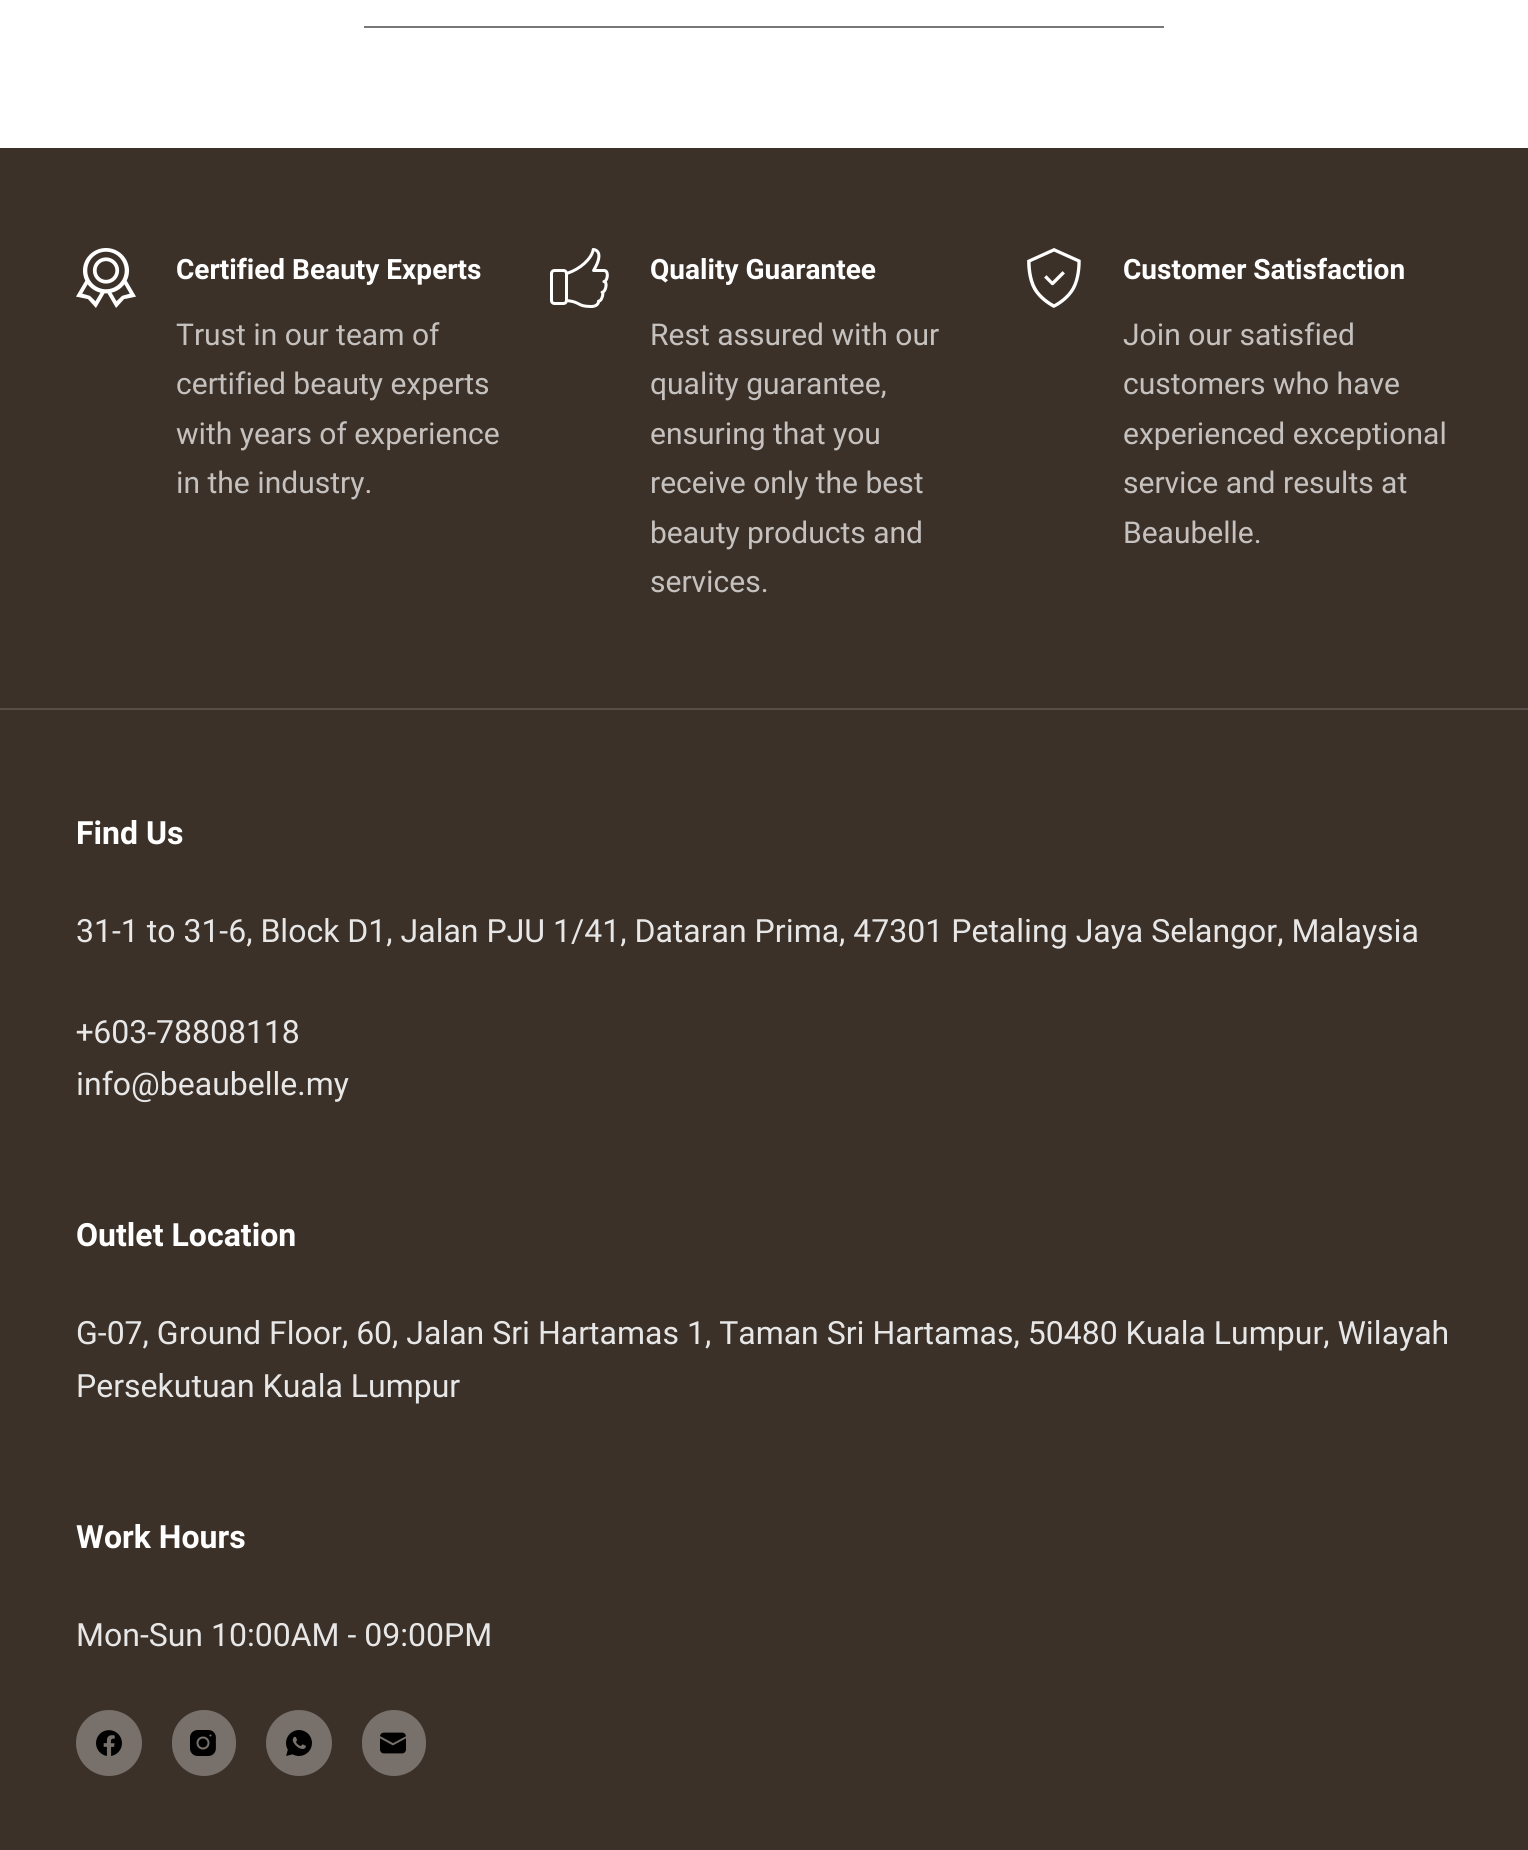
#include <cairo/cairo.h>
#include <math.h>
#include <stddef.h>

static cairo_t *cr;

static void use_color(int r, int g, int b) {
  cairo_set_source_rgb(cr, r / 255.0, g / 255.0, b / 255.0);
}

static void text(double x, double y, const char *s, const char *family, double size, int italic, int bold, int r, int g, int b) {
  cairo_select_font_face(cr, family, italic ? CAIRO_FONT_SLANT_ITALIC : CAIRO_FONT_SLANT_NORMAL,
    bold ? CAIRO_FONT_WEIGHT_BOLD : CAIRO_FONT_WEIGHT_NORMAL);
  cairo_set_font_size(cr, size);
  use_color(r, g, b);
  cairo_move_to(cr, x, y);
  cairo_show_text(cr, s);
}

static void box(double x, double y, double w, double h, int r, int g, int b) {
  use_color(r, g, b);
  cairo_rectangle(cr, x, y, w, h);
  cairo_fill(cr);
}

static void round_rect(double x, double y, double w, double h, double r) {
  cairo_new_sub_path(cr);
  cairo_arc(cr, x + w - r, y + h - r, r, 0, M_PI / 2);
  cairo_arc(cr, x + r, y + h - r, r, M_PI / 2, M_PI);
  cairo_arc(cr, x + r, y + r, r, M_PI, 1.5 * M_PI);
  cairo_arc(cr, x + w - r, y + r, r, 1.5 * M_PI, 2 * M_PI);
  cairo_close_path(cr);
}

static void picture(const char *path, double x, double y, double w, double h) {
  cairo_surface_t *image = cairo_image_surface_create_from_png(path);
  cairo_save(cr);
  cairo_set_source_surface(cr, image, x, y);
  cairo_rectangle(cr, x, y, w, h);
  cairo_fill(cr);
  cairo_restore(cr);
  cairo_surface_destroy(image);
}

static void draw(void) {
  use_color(255, 255, 255);
  cairo_paint(cr);
  box(364, 26, 800, 2, 119, 119, 119);
  box(0, 148, 1528, 560, 60, 49, 41);
  box(0, 708, 1528, 2, 87, 78, 71);
  picture("img_01.png", 76, 248, 60, 60);
  picture("img_02.png", 550, 248, 59, 60);
  picture("img_03.png", 1027, 248, 54, 60);
  box(0, 710, 1528, 1140, 60, 49, 41);
  use_color(120, 113, 107);
  cairo_arc(cr, 109, 1743, 33, 0, 2 * M_PI);
  cairo_fill(cr);
  picture("img_04.png", 96, 1730, 26, 26);
  round_rect(172, 1710, 64, 66, 32);
  cairo_fill(cr);
  picture("img_05.png", 190, 1730, 26, 26);
  cairo_arc(cr, 299, 1743, 33, 0, 2 * M_PI);
  cairo_fill(cr);
  picture("img_06.png", 286, 1730, 26, 26);
  round_rect(362, 1710, 64, 66, 32);
  cairo_fill(cr);
  picture("img_07.png", 380, 1732, 26, 22);
  text(176, 279, "Certified Beauty Experts", "Heebo", 28, 0, 1, 255, 255, 255);
  text(176, 345, "Trust in our team of", "Heebo", 30, 0, 0, 197, 193, 191);
  text(176, 394, "certified beauty experts", "Heebo", 30, 0, 0, 197, 193, 191);
  text(176, 444, "with years of experience", "Heebo", 30, 0, 0, 197, 193, 191);
  text(176, 493, "in the industry.", "Heebo", 30, 0, 0, 197, 193, 191);
  text(650, 279, "Quality Guarantee", "Heebo", 28, 0, 1, 255, 255, 255);
  text(650, 345, "Rest assured with our", "Heebo", 30, 0, 0, 197, 193, 191);
  text(650, 394, "quality guarantee,", "Heebo", 30, 0, 0, 197, 193, 191);
  text(650, 444, "ensuring that you", "Heebo", 30, 0, 0, 197, 193, 191);
  text(650, 493, "receive only the best", "Heebo", 30, 0, 0, 197, 193, 191);
  text(650, 543, "beauty products and", "Heebo", 30, 0, 0, 197, 193, 191);
  text(650, 592, "services.", "Heebo", 30, 0, 0, 197, 193, 191);
  text(1123, 279, "Customer Satisfaction", "Heebo", 28, 0, 1, 255, 255, 255);
  text(1123, 345, "Join our satisfied", "Heebo", 30, 0, 0, 197, 193, 191);
  text(1123, 394, "customers who have", "Heebo", 30, 0, 0, 197, 193, 191);
  text(1123, 444, "experienced exceptional", "Heebo", 30, 0, 0, 197, 193, 191);
  text(1123, 493, "service and results at", "Heebo", 30, 0, 0, 197, 193, 191);
  text(1123, 543, "Beaubelle.", "Heebo", 30, 0, 0, 197, 193, 191);
  text(76, 844, "Find Us", "Heebo", 32, 0, 1, 255, 255, 255);
  text(76, 942, "31-1 to 31-6, Block D1, Jalan PJU 1/41, Dataran Prima, 47301 Petaling Jaya Selangor, Malaysia", "Heebo", 32, 0, 0, 231, 231, 231);
  text(76, 1043, "+603-78808118", "Heebo", 32, 0, 0, 231, 231, 231);
  text(76, 1095, "info@beaubelle.my", "Heebo", 32, 0, 0, 231, 231, 231);
  text(76, 1246, "Outlet Location", "Heebo", 32, 0, 1, 255, 255, 255);
  text(76, 1344, "G-07, Ground Floor, 60, Jalan Sri Hartamas 1, Taman Sri Hartamas, 50480 Kuala Lumpur, Wilayah", "Heebo", 32, 0, 0, 231, 231, 231);
  text(76, 1397, "Persekutuan Kuala Lumpur", "Heebo", 32, 0, 0, 231, 231, 231);
  text(76, 1548, "Work Hours", "Heebo", 32, 0, 1, 255, 255, 255);
  text(76, 1646, "Mon-Sun 10:00AM - 09:00PM", "Heebo", 32, 0, 0, 231, 231, 231);
}

int main(void) {
  cairo_surface_t *surface = cairo_image_surface_create(CAIRO_FORMAT_RGB24, 1528, 1850);
  cr = cairo_create(surface);
  cairo_font_options_t *options = cairo_font_options_create();
  cairo_font_options_set_hint_metrics(options, CAIRO_HINT_METRICS_OFF);
  cairo_font_options_set_hint_style(options, CAIRO_HINT_STYLE_NONE);
  cairo_set_font_options(cr, options);
  cairo_set_miter_limit(cr, 4);
  draw();
  cairo_surface_write_to_png(surface, "out.png");
  cairo_font_options_destroy(options);
  cairo_destroy(cr);
  cairo_surface_destroy(surface);
  return 0;
}
